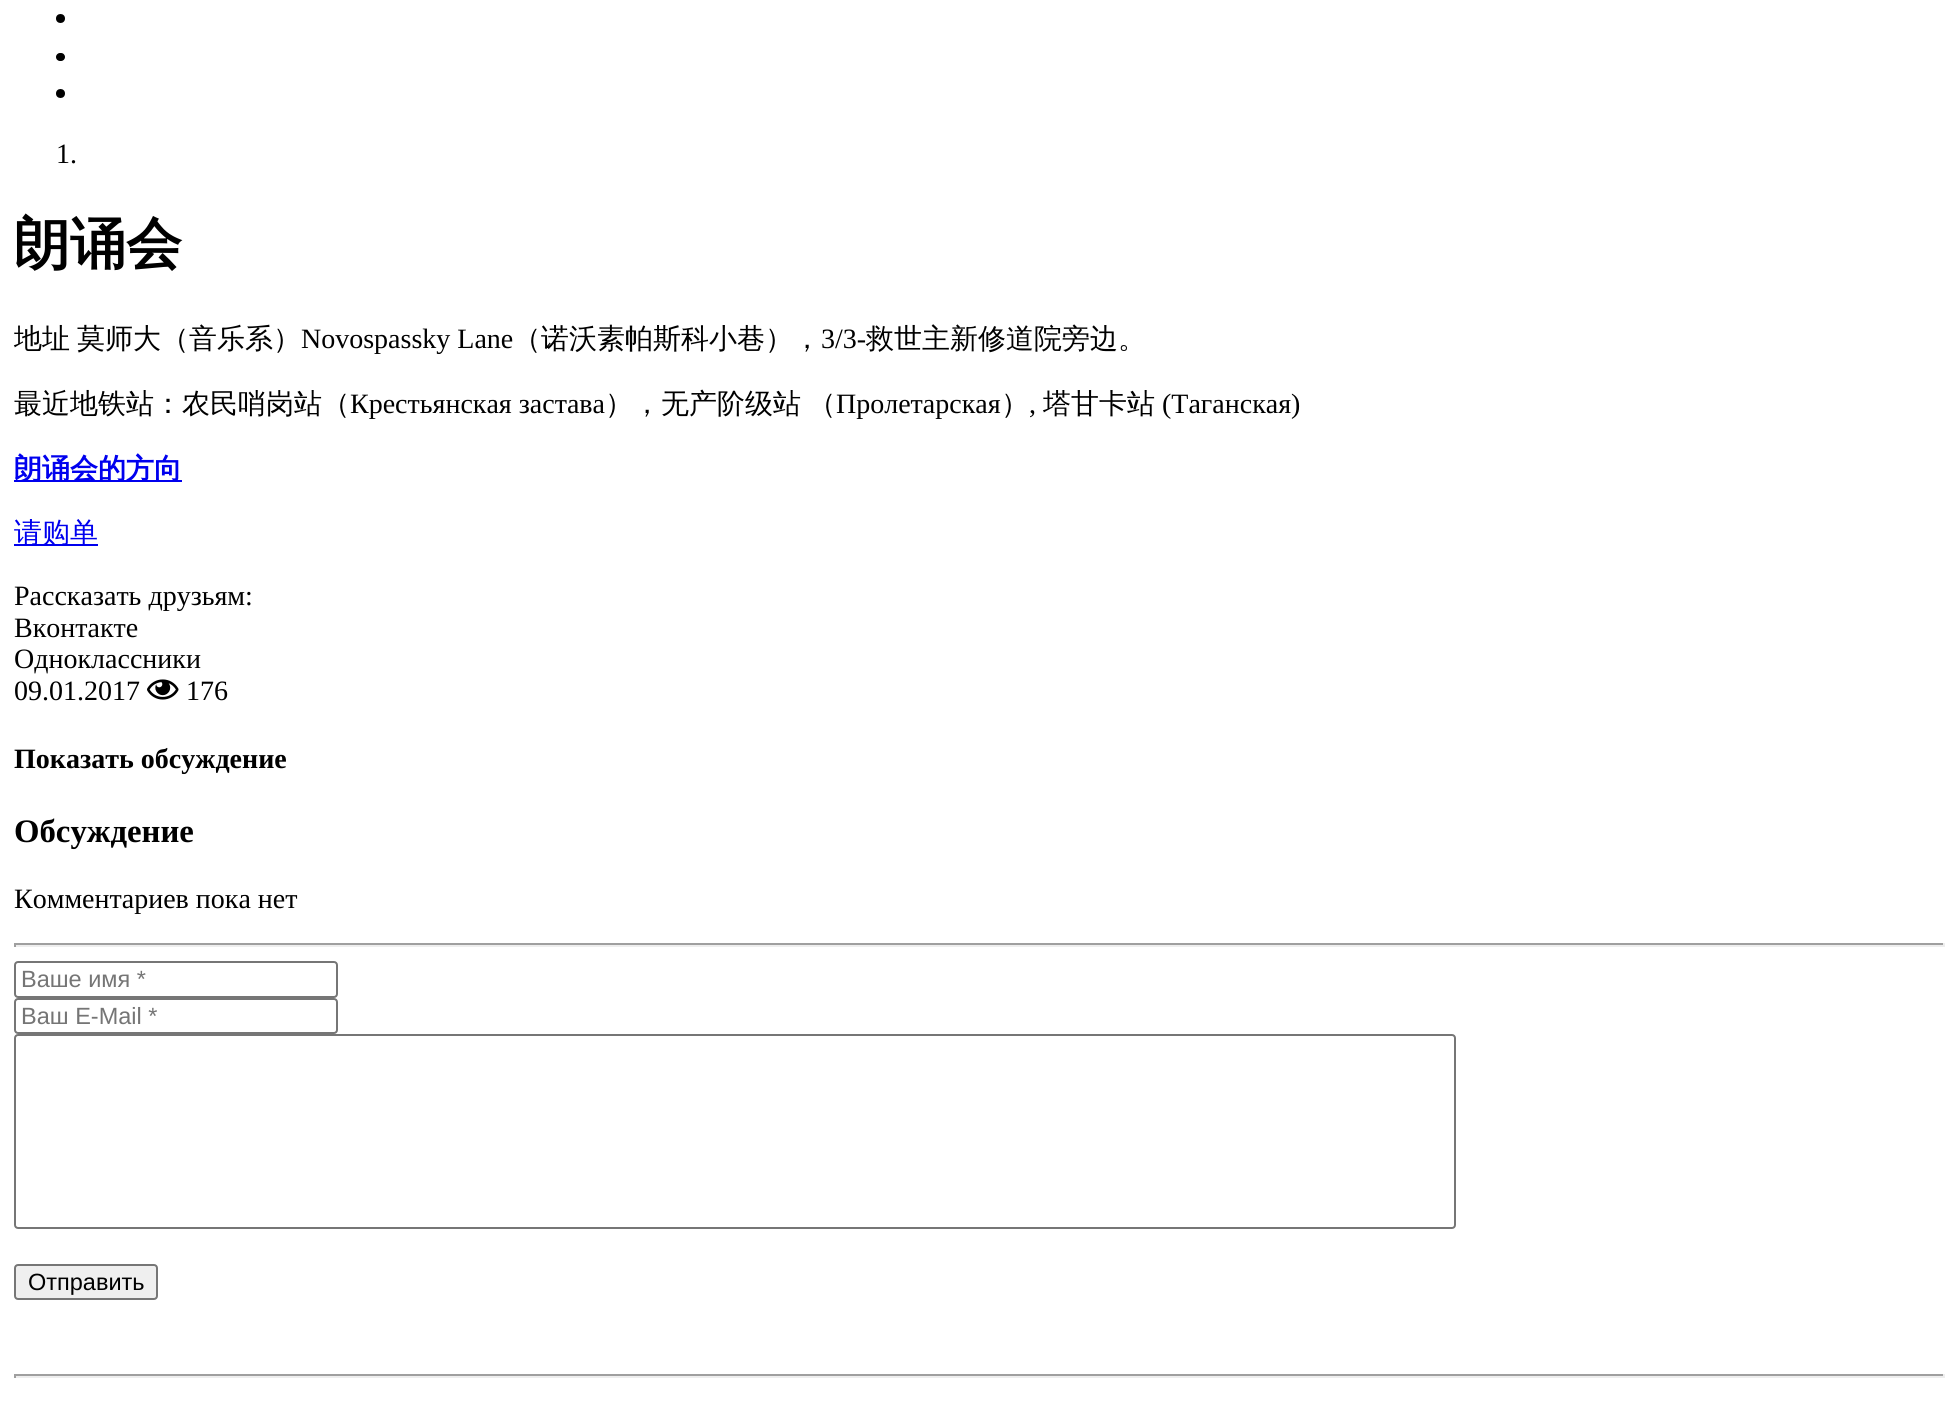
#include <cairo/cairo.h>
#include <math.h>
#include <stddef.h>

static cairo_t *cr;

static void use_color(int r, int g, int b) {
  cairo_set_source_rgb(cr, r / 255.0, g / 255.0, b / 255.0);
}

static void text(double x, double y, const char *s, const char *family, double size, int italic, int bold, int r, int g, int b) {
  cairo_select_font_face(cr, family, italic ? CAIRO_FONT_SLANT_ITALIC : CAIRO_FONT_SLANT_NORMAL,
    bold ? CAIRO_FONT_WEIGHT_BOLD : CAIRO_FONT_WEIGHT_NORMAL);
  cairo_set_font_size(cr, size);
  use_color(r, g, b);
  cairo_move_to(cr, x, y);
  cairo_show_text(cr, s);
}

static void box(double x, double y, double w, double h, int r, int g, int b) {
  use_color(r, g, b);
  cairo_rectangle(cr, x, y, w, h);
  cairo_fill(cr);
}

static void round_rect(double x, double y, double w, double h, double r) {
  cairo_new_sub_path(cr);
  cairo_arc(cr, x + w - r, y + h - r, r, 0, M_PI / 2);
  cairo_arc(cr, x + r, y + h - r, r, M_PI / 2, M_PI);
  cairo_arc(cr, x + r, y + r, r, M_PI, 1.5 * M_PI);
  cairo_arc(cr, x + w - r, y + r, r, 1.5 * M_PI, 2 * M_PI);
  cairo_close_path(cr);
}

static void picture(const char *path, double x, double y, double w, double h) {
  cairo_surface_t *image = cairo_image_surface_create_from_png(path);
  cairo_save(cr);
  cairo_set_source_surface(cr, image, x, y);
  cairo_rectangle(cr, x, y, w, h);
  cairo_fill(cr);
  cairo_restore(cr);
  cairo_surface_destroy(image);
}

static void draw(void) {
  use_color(255, 255, 255);
  cairo_paint(cr);
  use_color(0, 0, 0);
  cairo_arc(cr, 60.5, 18.5, 4.5, 0, 2 * M_PI);
  cairo_fill(cr);
  round_rect(56, 53, 9, 8, 4);
  cairo_fill(cr);
  cairo_arc(cr, 60.5, 93.5, 4.5, 0, 2 * M_PI);
  cairo_fill(cr);
  box(14, 480, 168, 2, 0, 0, 238);
  box(14, 544, 84, 2, 0, 0, 238);
  picture("img_01.png", 147, 679, 32, 21);
  box(14, 943, 1930, 2, 159, 159, 159);
  box(1943, 943, 2, 4, 238, 238, 238);
  box(14, 945, 1930, 2, 238, 238, 238);
  box(14, 943, 2, 4, 159, 159, 159);
  round_rect(15, 962, 322, 35, 3);
  use_color(118, 118, 118);
  cairo_stroke(cr);
  round_rect(15, 999, 322, 34, 3);
  cairo_stroke(cr);
  round_rect(15, 1035, 1440, 193, 3);
  cairo_stroke(cr);
  use_color(239, 239, 239);
  round_rect(15, 1265, 142, 34, 3);
  cairo_fill_preserve(cr);
  use_color(118, 118, 118);
  cairo_stroke(cr);
  box(14, 1374, 1930, 2, 159, 159, 159);
  box(1943, 1374, 2, 4, 238, 238, 238);
  box(14, 1376, 1930, 2, 238, 238, 238);
  box(14, 1374, 2, 4, 159, 159, 159);
  text(56, 163, "1.", "Liberation Serif", 28, 0, 0, 0, 0, 0);
  text(14, 263, "朗诵会", "WenQuanYi Zen Hei", 56, 0, 1, 0, 0, 0);
  text(14, 348, "地址", "WenQuanYi Zen Hei Medium", 28, 0, 0, 0, 0, 0);
  text(77, 348, "莫师大（音乐系）", "WenQuanYi Zen Hei Medium", 28, 0, 0, 0, 0, 0);
  text(301, 348, "Novospassky Lane", "Liberation Serif", 28, 0, 0, 0, 0, 0);
  text(513, 348, "（诺沃素帕斯科小巷），", "WenQuanYi Zen Hei Medium", 28, 0, 0, 0, 0, 0);
  text(821, 348, "3/3-", "Liberation Serif", 28, 0, 0, 0, 0, 0);
  text(866, 348, "救世主新修道院旁边。", "WenQuanYi Zen Hei Medium", 28, 0, 0, 0, 0, 0);
  text(14, 413, "最近地铁站：农民哨岗站（", "WenQuanYi Zen Hei Medium", 28, 0, 0, 0, 0, 0);
  text(350, 413, "Крестьянская застава", "Liberation Serif", 28, 0, 0, 0, 0, 0);
  text(605, 413, "），无产阶级站", "WenQuanYi Zen Hei Medium", 28, 0, 0, 0, 0, 0);
  text(808, 413, "（", "WenQuanYi Zen Hei Medium", 28, 0, 0, 0, 0, 0);
  text(836, 413, "Пролетарская", "Liberation Serif", 28, 0, 0, 0, 0, 0);
  text(1001, 413, "）", "WenQuanYi Zen Hei Medium", 28, 0, 0, 0, 0, 0);
  text(1029, 413, ",", "Liberation Serif", 28, 0, 0, 0, 0, 0);
  text(1043, 413, "塔甘卡站", "WenQuanYi Zen Hei Medium", 28, 0, 0, 0, 0, 0);
  text(1162, 413, "(Таганская)", "Liberation Serif", 28, 0, 0, 0, 0, 0);
  text(14, 478, "朗诵会的方向", "WenQuanYi Zen Hei", 28, 0, 1, 0, 0, 238);
  text(14, 542, "请购单", "WenQuanYi Zen Hei Medium", 28, 0, 0, 0, 0, 238);
  text(14, 605, "Рассказать друзьям:", "Liberation Serif", 28, 0, 0, 0, 0, 0);
  text(14, 637, "Вконтакте", "Liberation Serif", 28, 0, 0, 0, 0, 0);
  text(14, 668, "Одноклассники", "Liberation Serif", 28, 0, 0, 0, 0, 0);
  text(14, 700, "09.01.2017", "Liberation Serif", 28, 0, 0, 0, 0, 0);
  text(186, 700, "176", "Liberation Serif", 28, 0, 0, 0, 0, 0);
  text(14, 768, "Показать обсуждение", "Liberation Serif", 28, 0, 1, 0, 0, 0);
  text(14, 842, "Обсуждение", "Liberation Serif", 32.75, 0, 1, 0, 0, 0);
  text(14, 908, "Комментариев пока нет", "Liberation Serif", 28, 0, 0, 0, 0, 0);
  text(21, 987, "Ваше имя *", "Liberation Sans", 23.5, 0, 0, 117, 117, 117);
  text(21, 1024, "Ваш E-Mail *", "Liberation Sans", 23.5, 0, 0, 117, 117, 117);
  text(28, 1290, "Отправить", "Liberation Sans", 23.5, 0, 0, 0, 0, 0);
}

int main(void) {
  cairo_surface_t *surface = cairo_image_surface_create(CAIRO_FORMAT_RGB24, 1957, 1426);
  cr = cairo_create(surface);
  cairo_font_options_t *options = cairo_font_options_create();
  cairo_font_options_set_hint_metrics(options, CAIRO_HINT_METRICS_OFF);
  cairo_font_options_set_hint_style(options, CAIRO_HINT_STYLE_NONE);
  cairo_set_font_options(cr, options);
  cairo_set_miter_limit(cr, 4);
  draw();
  cairo_surface_write_to_png(surface, "out.png");
  cairo_font_options_destroy(options);
  cairo_destroy(cr);
  cairo_surface_destroy(surface);
  return 0;
}
